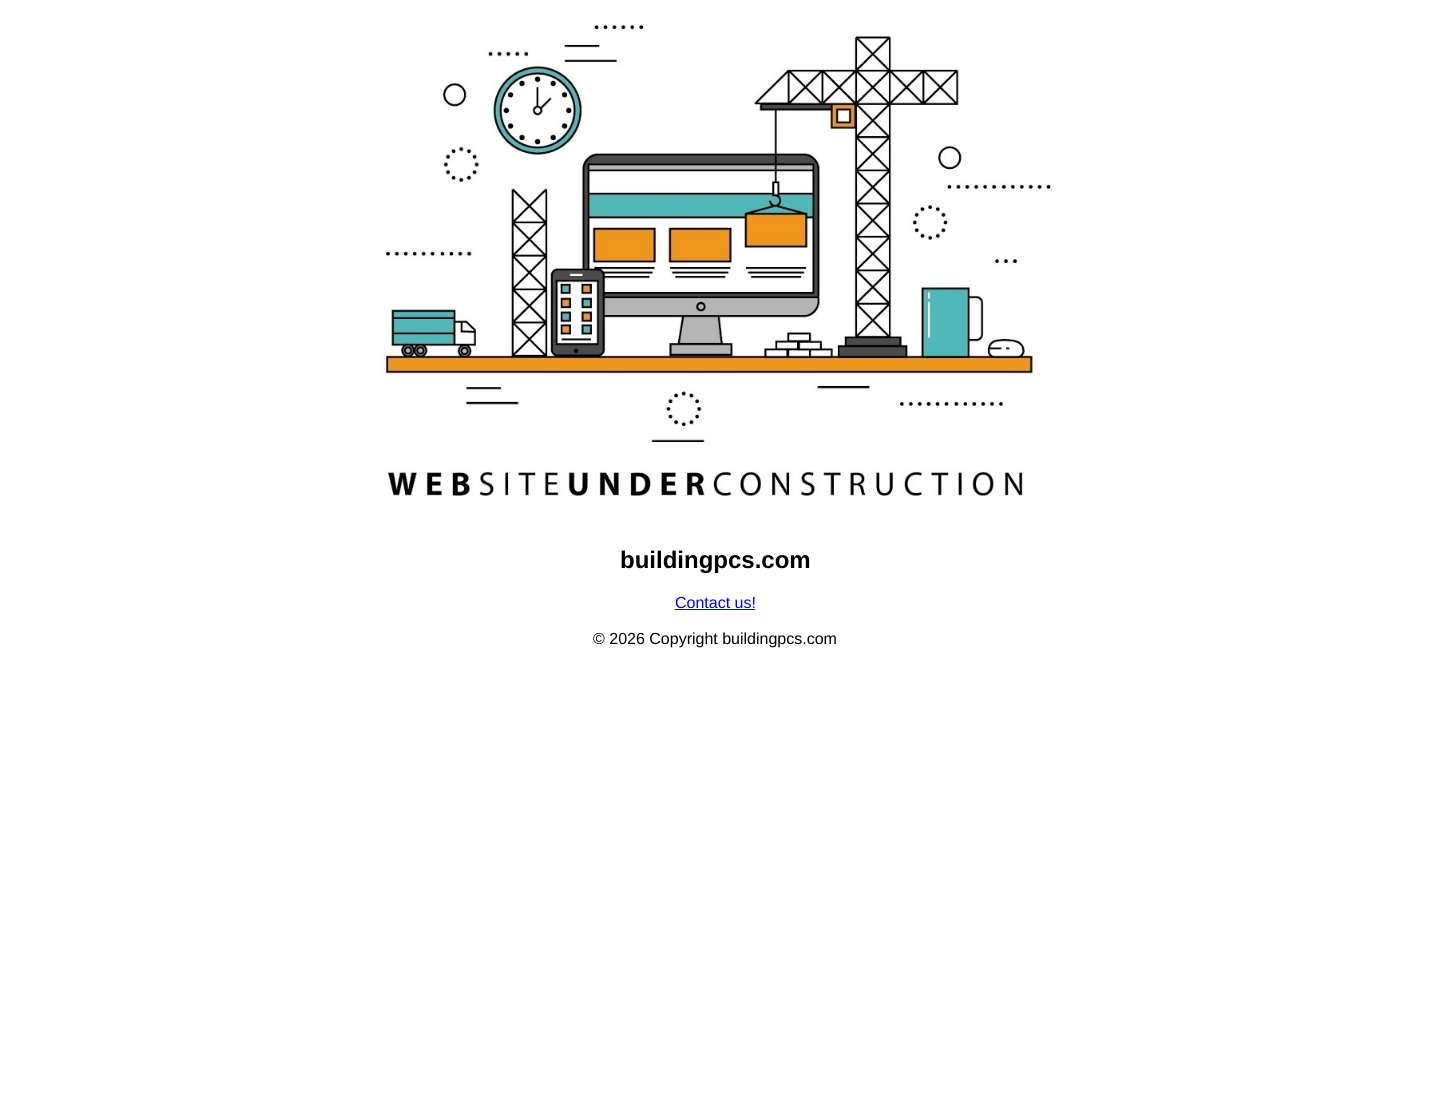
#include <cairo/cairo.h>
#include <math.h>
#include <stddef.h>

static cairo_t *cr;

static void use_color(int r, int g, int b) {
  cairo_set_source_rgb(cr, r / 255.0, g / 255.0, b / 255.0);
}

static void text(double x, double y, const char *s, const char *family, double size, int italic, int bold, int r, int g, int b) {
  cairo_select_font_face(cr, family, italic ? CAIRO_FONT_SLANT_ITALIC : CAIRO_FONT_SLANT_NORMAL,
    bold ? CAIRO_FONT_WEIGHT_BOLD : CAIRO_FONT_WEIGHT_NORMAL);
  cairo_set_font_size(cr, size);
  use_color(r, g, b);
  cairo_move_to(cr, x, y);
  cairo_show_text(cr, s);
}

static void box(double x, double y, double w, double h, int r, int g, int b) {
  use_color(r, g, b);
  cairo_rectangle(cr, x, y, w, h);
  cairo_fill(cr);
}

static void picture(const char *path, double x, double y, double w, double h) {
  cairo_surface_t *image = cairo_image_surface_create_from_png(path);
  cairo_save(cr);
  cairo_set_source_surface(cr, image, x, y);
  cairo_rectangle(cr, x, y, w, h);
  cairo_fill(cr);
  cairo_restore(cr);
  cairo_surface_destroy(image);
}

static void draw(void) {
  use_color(255, 255, 255);
  cairo_paint(cr);
  picture("img_01.png", 378, 23, 676, 473);
  box(675, 609, 80, 1, 0, 0, 238);
  text(620, 568, "buildingpcs.com", "Liberation Sans", 24, 0, 1, 0, 0, 0);
  text(675, 608, "Contact us!", "Liberation Sans", 16, 0, 0, 0, 0, 238);
  text(593, 644, "© 2026 Copyright buildingpcs.com", "Liberation Sans", 16, 0, 0, 0, 0, 0);
}

int main(void) {
  cairo_surface_t *surface = cairo_image_surface_create(CAIRO_FORMAT_RGB24, 1430, 1095);
  cr = cairo_create(surface);
  cairo_font_options_t *options = cairo_font_options_create();
  cairo_font_options_set_hint_metrics(options, CAIRO_HINT_METRICS_OFF);
  cairo_font_options_set_hint_style(options, CAIRO_HINT_STYLE_NONE);
  cairo_set_font_options(cr, options);
  cairo_set_miter_limit(cr, 4);
  draw();
  cairo_surface_write_to_png(surface, "out.png");
  cairo_font_options_destroy(options);
  cairo_destroy(cr);
  cairo_surface_destroy(surface);
  return 0;
}
